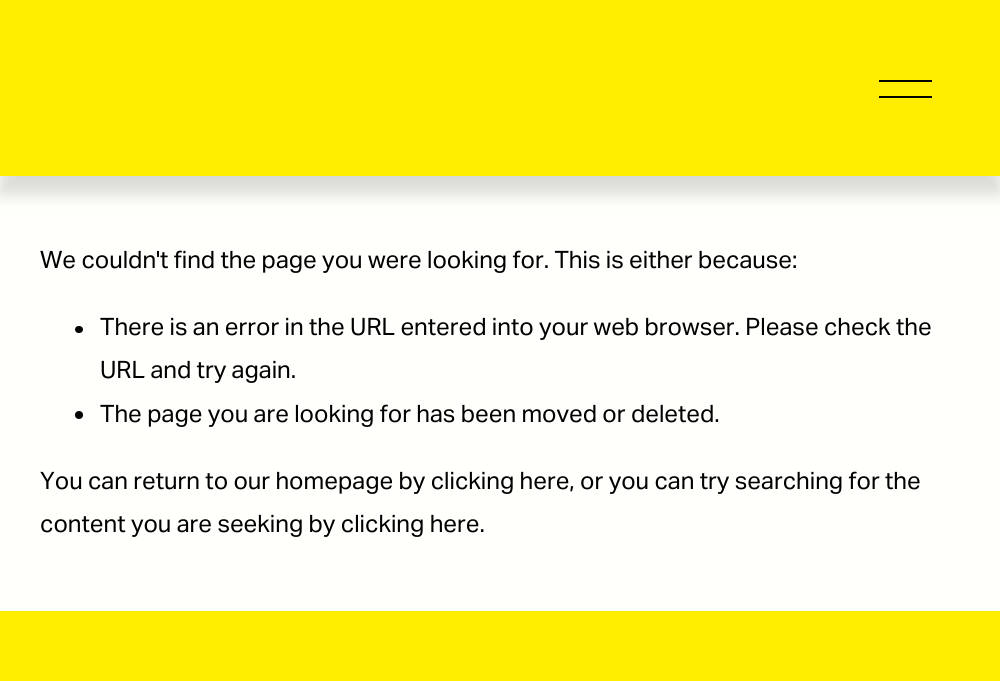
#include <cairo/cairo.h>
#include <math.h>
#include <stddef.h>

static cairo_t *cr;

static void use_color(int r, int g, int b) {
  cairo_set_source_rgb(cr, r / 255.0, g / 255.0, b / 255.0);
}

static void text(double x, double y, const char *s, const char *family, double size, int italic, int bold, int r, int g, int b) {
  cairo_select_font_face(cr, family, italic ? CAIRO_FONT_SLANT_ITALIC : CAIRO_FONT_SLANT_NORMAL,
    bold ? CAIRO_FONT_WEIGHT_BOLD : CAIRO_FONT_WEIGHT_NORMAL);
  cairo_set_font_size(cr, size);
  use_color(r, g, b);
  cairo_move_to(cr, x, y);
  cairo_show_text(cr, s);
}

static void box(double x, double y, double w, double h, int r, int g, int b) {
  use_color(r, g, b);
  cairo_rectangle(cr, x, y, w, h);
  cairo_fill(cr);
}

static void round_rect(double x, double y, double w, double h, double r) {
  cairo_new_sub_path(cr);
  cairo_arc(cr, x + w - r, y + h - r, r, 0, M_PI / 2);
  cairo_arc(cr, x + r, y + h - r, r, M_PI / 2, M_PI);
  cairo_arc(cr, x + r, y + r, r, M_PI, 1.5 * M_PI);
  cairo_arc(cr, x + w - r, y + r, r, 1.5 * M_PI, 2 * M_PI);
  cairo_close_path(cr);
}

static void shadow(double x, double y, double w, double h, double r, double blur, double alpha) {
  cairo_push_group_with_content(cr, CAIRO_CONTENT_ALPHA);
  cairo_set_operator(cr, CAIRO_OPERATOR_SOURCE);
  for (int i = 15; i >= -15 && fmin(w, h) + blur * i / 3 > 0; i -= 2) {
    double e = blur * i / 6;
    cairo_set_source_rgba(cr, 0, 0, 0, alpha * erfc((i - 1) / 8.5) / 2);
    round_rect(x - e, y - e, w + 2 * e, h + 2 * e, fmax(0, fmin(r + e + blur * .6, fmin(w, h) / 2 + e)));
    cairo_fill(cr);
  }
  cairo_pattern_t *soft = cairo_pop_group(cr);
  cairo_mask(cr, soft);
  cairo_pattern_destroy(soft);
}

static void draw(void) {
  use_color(255, 255, 252);
  cairo_paint(cr);
  box(0, 0, 1000, 176, 255, 237, 0);
  cairo_save(cr);
  cairo_set_fill_rule(cr, CAIRO_FILL_RULE_EVEN_ODD);
  cairo_new_path(cr);
  cairo_move_to(cr, 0, 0);
  cairo_line_to(cr, 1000, 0);
  cairo_line_to(cr, 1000, 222);
  cairo_line_to(cr, 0, 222);
  cairo_close_path(cr);
  cairo_move_to(cr, 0, 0);
  cairo_line_to(cr, 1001, 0);
  cairo_line_to(cr, 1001, 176);
  cairo_line_to(cr, 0, 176);
  cairo_close_path(cr);
  cairo_clip(cr);
  use_color(0, 0, 0);
  shadow(0, 18, 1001, 176, 0, 9, 0.15);
  cairo_restore(cr);
  box(879, 80, 53, 2, 0, 0, 0);
  box(879, 96, 53, 2, 0, 0, 0);
  round_rect(75, 326, 8, 7, 3.5);
  cairo_fill(cr);
  cairo_arc(cr, 79, 415, 4, 0, 2 * M_PI);
  cairo_fill(cr);
  box(0, 611, 1000, 70, 255, 237, 0);
  text(40, 268, "We couldn't find the page you were looking for. This is either because:", "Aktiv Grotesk", 24, 0, 0, 0, 0, 0);
  text(100, 335, "There is an error in the URL entered into your web browser. Please check the", "Aktiv Grotesk", 24, 0, 0, 0, 0, 0);
  text(100, 378, "URL and try again.", "Aktiv Grotesk", 24, 0, 0, 0, 0, 0);
  text(100, 422, "The page you are looking for has been moved or deleted.", "Aktiv Grotesk", 24, 0, 0, 0, 0, 0);
  text(40, 489, "You can return to our homepage by clicking here, or you can try searching for the", "Aktiv Grotesk", 24, 0, 0, 0, 0, 0);
  text(40, 532, "content you are seeking by clicking here.", "Aktiv Grotesk", 24, 0, 0, 0, 0, 0);
}

int main(void) {
  cairo_surface_t *surface = cairo_image_surface_create(CAIRO_FORMAT_RGB24, 1000, 681);
  cr = cairo_create(surface);
  cairo_font_options_t *options = cairo_font_options_create();
  cairo_font_options_set_hint_metrics(options, CAIRO_HINT_METRICS_OFF);
  cairo_font_options_set_hint_style(options, CAIRO_HINT_STYLE_NONE);
  cairo_set_font_options(cr, options);
  cairo_set_miter_limit(cr, 4);
  draw();
  cairo_surface_write_to_png(surface, "out.png");
  cairo_font_options_destroy(options);
  cairo_destroy(cr);
  cairo_surface_destroy(surface);
  return 0;
}
